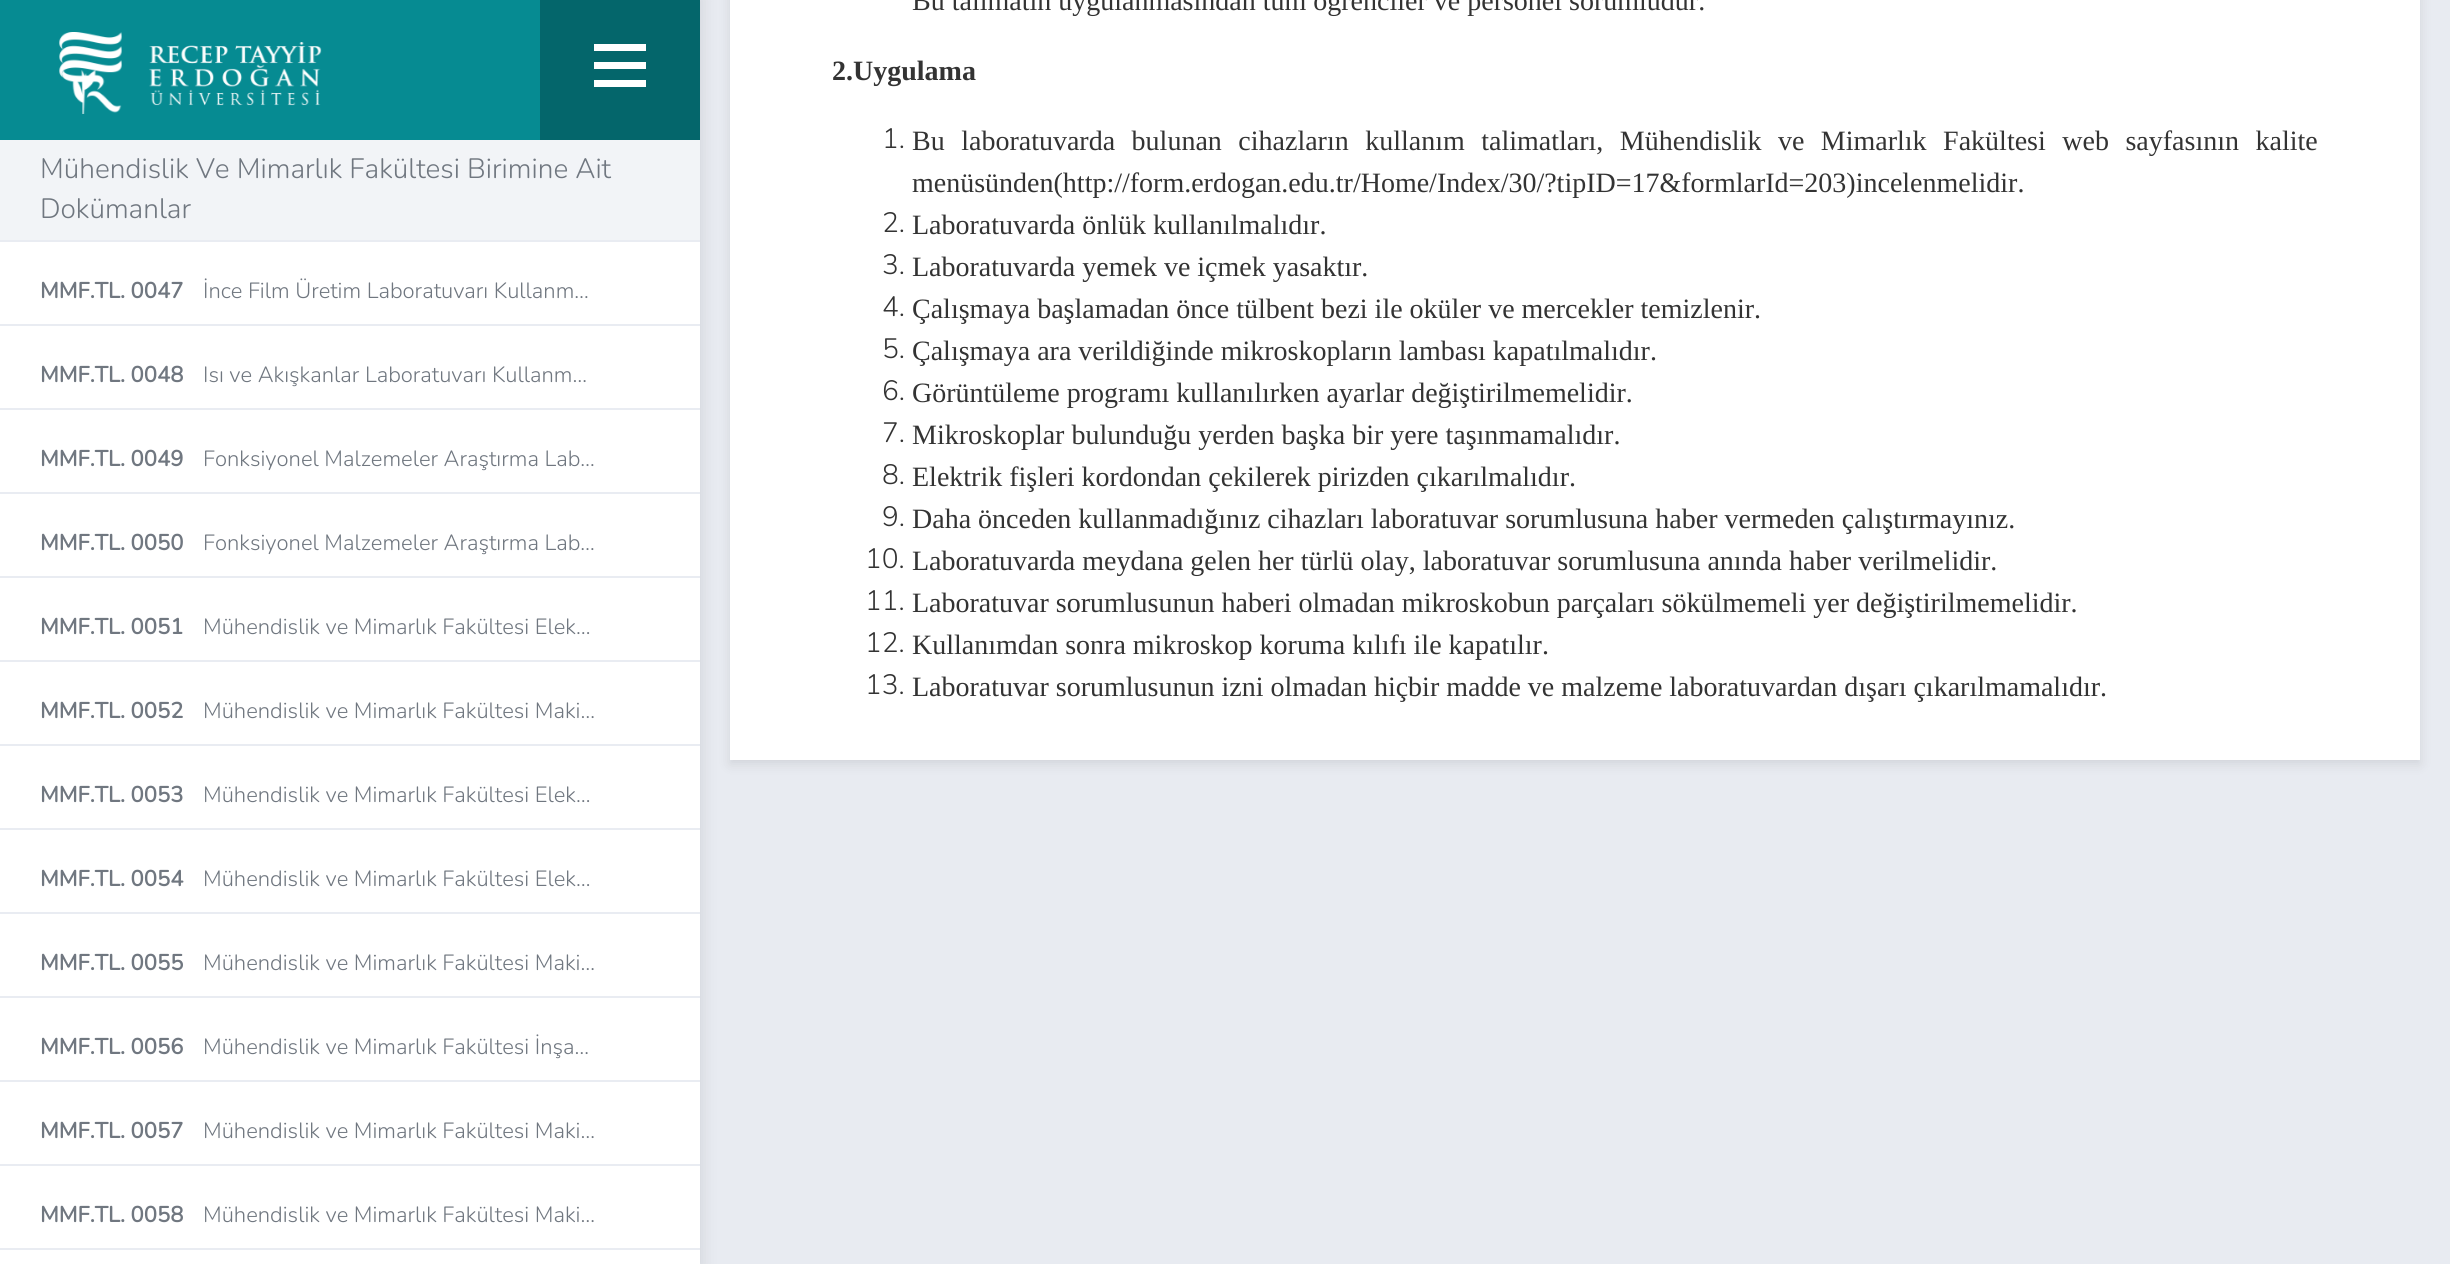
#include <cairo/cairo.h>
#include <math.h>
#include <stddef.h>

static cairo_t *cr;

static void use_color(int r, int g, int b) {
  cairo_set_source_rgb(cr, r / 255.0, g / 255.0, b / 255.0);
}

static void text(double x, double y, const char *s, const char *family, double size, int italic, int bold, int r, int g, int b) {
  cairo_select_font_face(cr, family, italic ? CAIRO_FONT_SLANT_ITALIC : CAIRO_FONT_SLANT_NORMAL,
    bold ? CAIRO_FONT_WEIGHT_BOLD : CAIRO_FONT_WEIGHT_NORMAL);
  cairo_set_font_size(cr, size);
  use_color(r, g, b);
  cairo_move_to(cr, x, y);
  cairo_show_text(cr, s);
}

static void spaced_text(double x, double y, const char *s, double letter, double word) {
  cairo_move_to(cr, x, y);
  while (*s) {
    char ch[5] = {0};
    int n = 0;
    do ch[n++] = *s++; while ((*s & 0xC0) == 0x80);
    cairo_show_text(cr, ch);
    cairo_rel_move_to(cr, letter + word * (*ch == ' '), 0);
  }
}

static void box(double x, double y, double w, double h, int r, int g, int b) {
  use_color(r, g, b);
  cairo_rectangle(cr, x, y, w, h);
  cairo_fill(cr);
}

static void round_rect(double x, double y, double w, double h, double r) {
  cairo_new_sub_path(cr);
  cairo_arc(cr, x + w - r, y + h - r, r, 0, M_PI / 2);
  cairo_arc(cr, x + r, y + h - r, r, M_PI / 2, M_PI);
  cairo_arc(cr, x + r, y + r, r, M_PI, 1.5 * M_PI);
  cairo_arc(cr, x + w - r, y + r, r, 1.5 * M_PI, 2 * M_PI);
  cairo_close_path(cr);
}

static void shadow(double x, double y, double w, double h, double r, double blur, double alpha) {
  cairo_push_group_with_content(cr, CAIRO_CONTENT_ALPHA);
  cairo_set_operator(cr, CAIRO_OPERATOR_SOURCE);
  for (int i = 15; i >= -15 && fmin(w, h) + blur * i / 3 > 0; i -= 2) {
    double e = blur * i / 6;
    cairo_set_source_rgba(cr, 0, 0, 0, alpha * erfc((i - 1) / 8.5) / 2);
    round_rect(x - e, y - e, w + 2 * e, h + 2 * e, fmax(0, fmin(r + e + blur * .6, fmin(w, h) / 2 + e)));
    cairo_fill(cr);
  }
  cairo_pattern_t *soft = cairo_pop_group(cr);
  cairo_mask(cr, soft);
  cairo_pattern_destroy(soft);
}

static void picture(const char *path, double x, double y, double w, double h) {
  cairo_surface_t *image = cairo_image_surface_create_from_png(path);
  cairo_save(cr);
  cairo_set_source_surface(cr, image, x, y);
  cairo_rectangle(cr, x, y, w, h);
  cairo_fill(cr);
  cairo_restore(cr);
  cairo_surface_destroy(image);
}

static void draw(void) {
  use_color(232, 235, 241);
  cairo_paint(cr);
  use_color(0, 0, 0);
  shadow(-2, -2, 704, 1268, 0, 8, 0.1);
  box(0, 242, 700, 1022, 255, 255, 255);
  box(0, 0, 540, 140, 6, 139, 146);
  picture("img_01.png", 59, 32, 263, 82);
  box(540, 0, 160, 140, 4, 102, 107);
  use_color(255, 255, 255);
  cairo_new_path(cr);
  cairo_move_to(cr, 646, 44);
  cairo_line_to(cr, 646, 51);
  cairo_line_to(cr, 594, 51);
  cairo_line_to(cr, 594, 44);
  cairo_close_path(cr);
  cairo_move_to(cr, 594, 69);
  cairo_line_to(cr, 646, 69);
  cairo_line_to(cr, 646, 62);
  cairo_line_to(cr, 594, 62);
  cairo_close_path(cr);
  cairo_move_to(cr, 594, 87);
  cairo_line_to(cr, 646, 87);
  cairo_line_to(cr, 646, 80);
  cairo_line_to(cr, 594, 80);
  cairo_close_path(cr);
  cairo_fill(cr);
  box(0, 140, 700, 100, 242, 244, 247);
  box(0, 240, 700, 2, 233, 236, 242);
  box(0, 324, 700, 2, 233, 236, 242);
  box(0, 408, 700, 2, 233, 236, 242);
  box(0, 492, 700, 2, 233, 236, 242);
  box(0, 576, 700, 2, 233, 236, 242);
  box(0, 660, 700, 2, 233, 236, 242);
  box(0, 744, 700, 2, 233, 236, 242);
  box(0, 828, 700, 2, 233, 236, 242);
  box(0, 912, 700, 2, 233, 236, 242);
  box(0, 996, 700, 2, 233, 236, 242);
  box(0, 1080, 700, 2, 233, 236, 242);
  box(0, 1164, 700, 2, 233, 236, 242);
  box(0, 1248, 700, 2, 233, 236, 242);
  use_color(0, 0, 0);
  shadow(730, -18, 1690, 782, 0, 6, 0.1);
  box(730, 0, 1690, 760, 255, 255, 255);
  text(40, 178, "Mühendislik Ve Mimarlık Fakültesi Birimine Ait", "Nunito Light", 28, 0, 0, 112, 119, 128);
  text(40, 218, "Dokümanlar", "Nunito Light", 28, 0, 0, 112, 119, 128);
  text(40, 298, "MMF.TL. 0047", "Nunito", 22, 0, 1, 112, 119, 128);
  text(203, 298, "İnce Film Üretim Laboratuvarı Kullanm…", "Nunito Light", 22, 0, 0, 112, 119, 128);
  text(40, 382, "MMF.TL. 0048", "Nunito", 22, 0, 1, 112, 119, 128);
  text(203, 382, "Isı ve Akışkanlar Laboratuvarı Kullanm…", "Nunito Light", 22, 0, 0, 112, 119, 128);
  text(40, 466, "MMF.TL. 0049", "Nunito", 22, 0, 1, 112, 119, 128);
  text(203, 466, "Fonksiyonel Malzemeler Araştırma Lab…", "Nunito Light", 22, 0, 0, 112, 119, 128);
  text(40, 550, "MMF.TL. 0050", "Nunito", 22, 0, 1, 112, 119, 128);
  text(203, 550, "Fonksiyonel Malzemeler Araştırma Lab…", "Nunito Light", 22, 0, 0, 112, 119, 128);
  text(40, 634, "MMF.TL. 0051", "Nunito", 22, 0, 1, 112, 119, 128);
  text(203, 634, "Mühendislik ve Mimarlık Fakültesi Elek…", "Nunito Light", 22, 0, 0, 112, 119, 128);
  text(40, 718, "MMF.TL. 0052", "Nunito", 22, 0, 1, 112, 119, 128);
  text(203, 718, "Mühendislik ve Mimarlık Fakültesi Maki…", "Nunito Light", 22, 0, 0, 112, 119, 128);
  text(40, 802, "MMF.TL. 0053", "Nunito", 22, 0, 1, 112, 119, 128);
  text(203, 802, "Mühendislik ve Mimarlık Fakültesi Elek…", "Nunito Light", 22, 0, 0, 112, 119, 128);
  text(40, 886, "MMF.TL. 0054", "Nunito", 22, 0, 1, 112, 119, 128);
  text(203, 886, "Mühendislik ve Mimarlık Fakültesi Elek…", "Nunito Light", 22, 0, 0, 112, 119, 128);
  text(40, 970, "MMF.TL. 0055", "Nunito", 22, 0, 1, 112, 119, 128);
  text(203, 970, "Mühendislik ve Mimarlık Fakültesi Maki…", "Nunito Light", 22, 0, 0, 112, 119, 128);
  text(40, 1054, "MMF.TL. 0056", "Nunito", 22, 0, 1, 112, 119, 128);
  text(203, 1054, "Mühendislik ve Mimarlık Fakültesi İnşa…", "Nunito Light", 22, 0, 0, 112, 119, 128);
  text(40, 1138, "MMF.TL. 0057", "Nunito", 22, 0, 1, 112, 119, 128);
  text(203, 1138, "Mühendislik ve Mimarlık Fakültesi Maki…", "Nunito Light", 22, 0, 0, 112, 119, 128);
  text(40, 1222, "MMF.TL. 0058", "Nunito", 22, 0, 1, 112, 119, 128);
  text(203, 1222, "Mühendislik ve Mimarlık Fakültesi Maki…", "Nunito Light", 22, 0, 0, 112, 119, 128);
  text(912, 10, "Bu talimatın uygulanmasından tüm öğrenciler ve personel sorumludur.", "Liberation Serif", 28, 0, 0, 51, 51, 51);
  text(832, 80, "2.Uygulama", "Liberation Serif", 28, 0, 1, 51, 51, 51);
  text(882, 148, "1.", "Nunito Light", 28, 0, 0, 51, 51, 51);
  cairo_select_font_face(cr, "Liberation Serif", CAIRO_FONT_SLANT_NORMAL, CAIRO_FONT_WEIGHT_NORMAL);
  spaced_text(912, 150, "Bu laboratuvarda bulunan cihazların kullanım talimatları, Mühendislik ve Mimarlık Fakültesi web sayfasının kalite", 0, 9.5);
  text(912, 192, "menüsünden(http://form.erdogan.edu.tr/Home/Index/30/?tipID=17&formlarId=203)incelenmelidir.", "Liberation Serif", 28, 0, 0, 51, 51, 51);
  text(882, 232, "2.", "Nunito Light", 28, 0, 0, 51, 51, 51);
  text(912, 234, "Laboratuvarda önlük kullanılmalıdır.", "Liberation Serif", 28, 0, 0, 51, 51, 51);
  text(882, 274, "3.", "Nunito Light", 28, 0, 0, 51, 51, 51);
  text(912, 276, "Laboratuvarda yemek ve içmek yasaktır.", "Liberation Serif", 28, 0, 0, 51, 51, 51);
  text(882, 316, "4.", "Nunito Light", 28, 0, 0, 51, 51, 51);
  text(912, 318, "Çalışmaya başlamadan önce tülbent bezi ile oküler ve mercekler temizlenir.", "Liberation Serif", 28, 0, 0, 51, 51, 51);
  text(882, 358, "5.", "Nunito Light", 28, 0, 0, 51, 51, 51);
  text(912, 360, "Çalışmaya ara verildiğinde mikroskopların lambası kapatılmalıdır.", "Liberation Serif", 28, 0, 0, 51, 51, 51);
  text(882, 400, "6.", "Nunito Light", 28, 0, 0, 51, 51, 51);
  text(912, 402, "Görüntüleme programı kullanılırken ayarlar değiştirilmemelidir.", "Liberation Serif", 28, 0, 0, 51, 51, 51);
  text(882, 442, "7.", "Nunito Light", 28, 0, 0, 51, 51, 51);
  text(912, 444, "Mikroskoplar bulunduğu yerden başka bir yere taşınmamalıdır.", "Liberation Serif", 28, 0, 0, 51, 51, 51);
  text(882, 484, "8.", "Nunito Light", 28, 0, 0, 51, 51, 51);
  text(912, 486, "Elektrik fişleri kordondan çekilerek pirizden çıkarılmalıdır.", "Liberation Serif", 28, 0, 0, 51, 51, 51);
  text(882, 526, "9.", "Nunito Light", 28, 0, 0, 51, 51, 51);
  text(912, 528, "Daha önceden kullanmadığınız cihazları laboratuvar sorumlusuna haber vermeden çalıştırmayınız.", "Liberation Serif", 28, 0, 0, 51, 51, 51);
  text(865, 568, "10.", "Nunito Light", 28, 0, 0, 51, 51, 51);
  text(912, 570, "Laboratuvarda meydana gelen her türlü olay, laboratuvar sorumlusuna anında haber verilmelidir.", "Liberation Serif", 28, 0, 0, 51, 51, 51);
  text(865, 610, "11.", "Nunito Light", 28, 0, 0, 51, 51, 51);
  text(912, 612, "Laboratuvar sorumlusunun haberi olmadan mikroskobun parçaları sökülmemeli yer değiştirilmemelidir.", "Liberation Serif", 28, 0, 0, 51, 51, 51);
  text(865, 652, "12.", "Nunito Light", 28, 0, 0, 51, 51, 51);
  text(912, 654, "Kullanımdan sonra mikroskop koruma kılıfı ile kapatılır.", "Liberation Serif", 28, 0, 0, 51, 51, 51);
  text(865, 694, "13.", "Nunito Light", 28, 0, 0, 51, 51, 51);
  text(912, 696, "Laboratuvar sorumlusunun izni olmadan hiçbir madde ve malzeme laboratuvardan dışarı çıkarılmamalıdır.", "Liberation Serif", 28, 0, 0, 51, 51, 51);
}

int main(void) {
  cairo_surface_t *surface = cairo_image_surface_create(CAIRO_FORMAT_RGB24, 2450, 1264);
  cr = cairo_create(surface);
  cairo_font_options_t *options = cairo_font_options_create();
  cairo_font_options_set_hint_metrics(options, CAIRO_HINT_METRICS_OFF);
  cairo_font_options_set_hint_style(options, CAIRO_HINT_STYLE_NONE);
  cairo_set_font_options(cr, options);
  cairo_set_miter_limit(cr, 4);
  draw();
  cairo_surface_write_to_png(surface, "out.png");
  cairo_font_options_destroy(options);
  cairo_destroy(cr);
  cairo_surface_destroy(surface);
  return 0;
}
